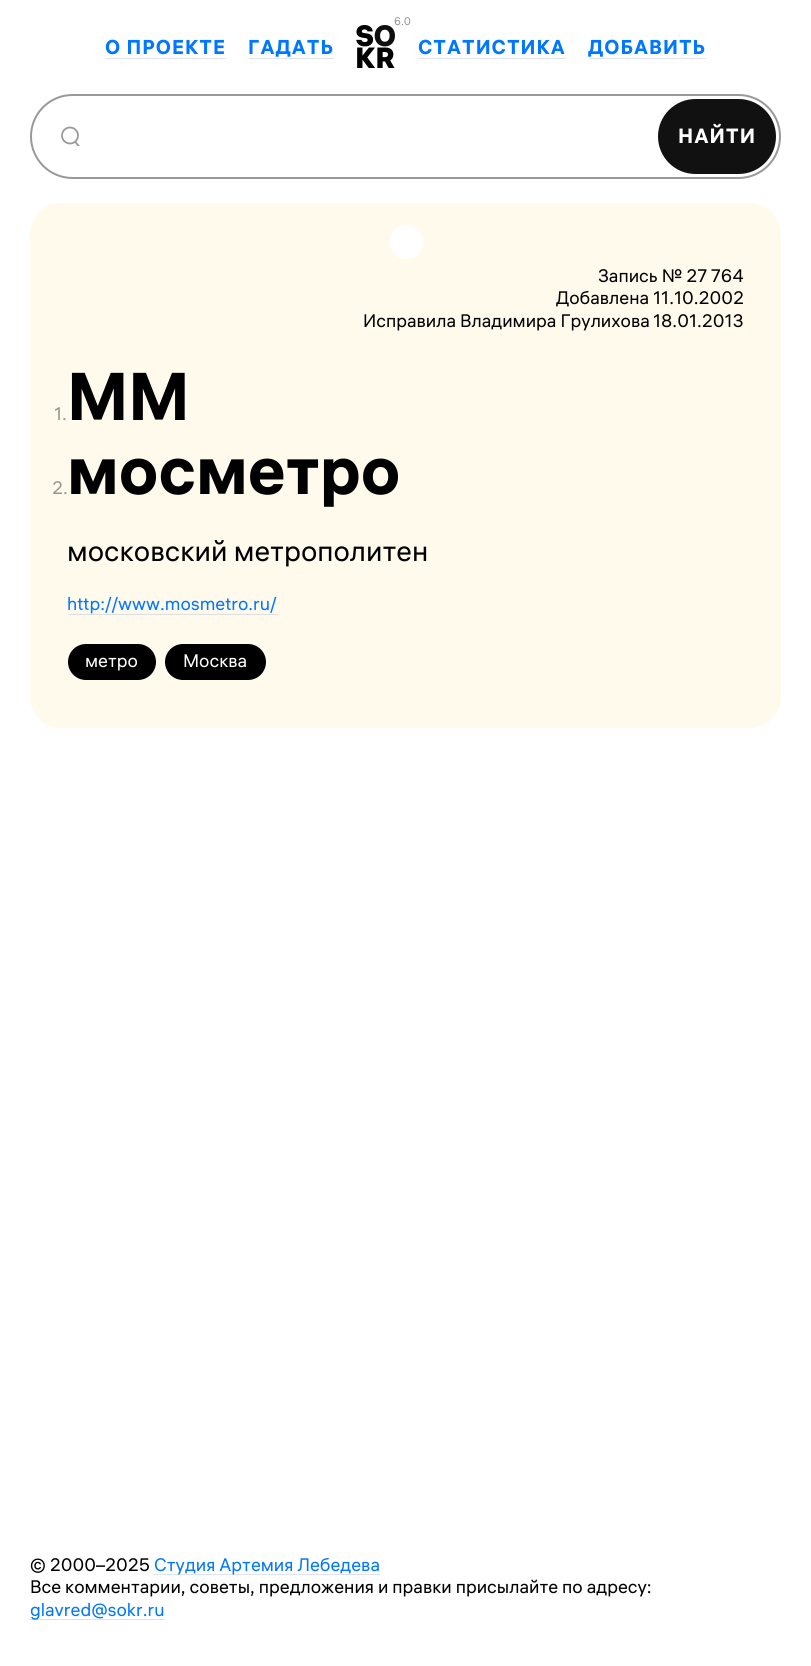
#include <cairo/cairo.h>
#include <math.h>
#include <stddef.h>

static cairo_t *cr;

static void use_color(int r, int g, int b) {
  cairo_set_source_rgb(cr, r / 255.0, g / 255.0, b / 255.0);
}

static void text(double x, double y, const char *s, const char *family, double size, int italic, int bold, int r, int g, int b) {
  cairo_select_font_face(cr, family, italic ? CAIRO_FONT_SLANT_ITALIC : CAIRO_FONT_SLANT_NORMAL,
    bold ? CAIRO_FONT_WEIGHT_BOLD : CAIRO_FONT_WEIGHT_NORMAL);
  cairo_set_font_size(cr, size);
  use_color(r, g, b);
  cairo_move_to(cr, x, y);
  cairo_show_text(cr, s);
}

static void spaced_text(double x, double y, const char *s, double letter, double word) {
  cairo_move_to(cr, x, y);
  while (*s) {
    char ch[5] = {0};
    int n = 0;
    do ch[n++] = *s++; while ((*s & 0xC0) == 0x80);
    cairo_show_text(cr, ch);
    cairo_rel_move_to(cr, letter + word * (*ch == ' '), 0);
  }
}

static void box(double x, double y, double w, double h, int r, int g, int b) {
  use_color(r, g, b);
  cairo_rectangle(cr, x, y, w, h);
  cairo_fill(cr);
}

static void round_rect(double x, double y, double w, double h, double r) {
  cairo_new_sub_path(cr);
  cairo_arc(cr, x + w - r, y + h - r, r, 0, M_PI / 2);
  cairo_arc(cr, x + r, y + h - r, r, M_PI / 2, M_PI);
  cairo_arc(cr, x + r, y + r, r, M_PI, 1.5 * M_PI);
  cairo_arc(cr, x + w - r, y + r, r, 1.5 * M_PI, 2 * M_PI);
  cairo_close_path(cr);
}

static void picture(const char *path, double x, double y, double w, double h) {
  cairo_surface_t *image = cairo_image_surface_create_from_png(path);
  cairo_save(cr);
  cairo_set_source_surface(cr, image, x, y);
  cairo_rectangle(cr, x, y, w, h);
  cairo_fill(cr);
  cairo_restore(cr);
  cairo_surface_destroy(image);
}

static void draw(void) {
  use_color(255, 255, 255);
  cairo_paint(cr);
  box(105, 58, 121, 1, 222, 226, 241);
  box(249, 58, 85, 1, 222, 226, 241);
  box(418, 58, 148, 1, 222, 226, 241);
  box(589, 58, 117, 1, 222, 226, 241);
  round_rect(31, 95, 749, 83, 41.5);
  use_color(153, 153, 153);
  cairo_stroke(cr);
  cairo_arc(cr, 70, 135.5, 8, 0, 2 * M_PI);
  cairo_set_line_width(cr, 1.8);
  cairo_stroke(cr);
  cairo_save(cr);
  cairo_rectangle(cr, 60, 125, 20, 21);
  cairo_clip(cr);
  cairo_new_path(cr);
  cairo_move_to(cr, 75, 141.5);
  cairo_line_to(cr, 79, 146.5);
  cairo_stroke(cr);
  cairo_restore(cr);
  use_color(17, 17, 17);
  round_rect(658, 99, 118, 75, 37.5);
  cairo_fill(cr);
  use_color(255, 250, 236);
  round_rect(30, 203, 751, 525, 31);
  cairo_fill(cr);
  use_color(255, 255, 255);
  round_rect(390, 225, 33, 34, 16.5);
  cairo_fill(cr);
  box(68, 614, 210, 1, 222, 222, 225);
  use_color(0, 0, 0);
  round_rect(68, 644, 88, 36, 18);
  cairo_fill(cr);
  box(85, 669, 54, 1, 5, 10, 24);
  use_color(0, 0, 0);
  round_rect(165, 644, 101, 36, 18);
  cairo_fill(cr);
  box(184, 669, 64, 1, 5, 10, 24);
  box(154, 1574, 226, 1, 222, 226, 241);
  box(30, 1619, 135, 1, 222, 226, 241);
  text(394, 25, "6.0", "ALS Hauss", 11, 0, 0, 148, 148, 148);
  picture("img_01.png", 356, 25, 39, 43);
  cairo_select_font_face(cr, "ALS Hauss", CAIRO_FONT_SLANT_NORMAL, CAIRO_FONT_WEIGHT_BOLD);
  cairo_set_font_size(cr, 20);
  use_color(0, 119, 255);
  spaced_text(105, 54, "О ПРОЕКТЕ", 1, 0);
  spaced_text(248, 54, "ГАДАТЬ", 1, 0);
  spaced_text(418, 54, "СТАТИСТИКА", 1, 0);
  spaced_text(588, 54, "ДОБАВИТЬ", 1, 0);
  cairo_set_font_size(cr, 20.5);
  use_color(255, 255, 255);
  spaced_text(678, 143, "НАЙТИ", 1, 0);
  text(598, 282, "Запись № 27 764", "ALS Hauss", 18.05, 0, 0, 0, 0, 0);
  text(556, 304, "Добавлена 11.10.2002", "ALS Hauss", 18.05, 0, 0, 0, 0, 0);
  text(363, 327, "Исправила Владимира Грулихова", "ALS Hauss", 18.05, 0, 0, 0, 0, 0);
  text(653, 327, "18.01.2013", "ALS Hauss", 18.05, 0, 0, 0, 0, 0);
  text(54, 420, "1.", "ALS Hauss", 18.05, 0, 0, 153, 150, 142);
  text(67, 420, "ММ", "ALS Hauss", 67, 0, 1, 0, 0, 0);
  text(52, 494, "2.", "ALS Hauss", 18.05, 0, 0, 153, 150, 142);
  text(67, 494, "мосметро", "ALS Hauss", 67, 0, 1, 0, 0, 0);
  text(67, 561, "московский метрополитен", "ALS Hauss", 28.5, 0, 0, 0, 0, 0);
  text(67, 610, "http://www.mosmetro.ru/", "ALS Hauss", 18.05, 0, 0, 0, 119, 255);
  text(85, 667, "метро", "ALS Hauss", 18.05, 0, 0, 255, 255, 255);
  text(183, 667, "Москва", "ALS Hauss", 18.05, 0, 0, 255, 255, 255);
  text(30, 1571, "© 2000–2025", "ALS Hauss", 18.05, 0, 0, 0, 0, 0);
  text(154, 1571, "Студия Артемия Лебедева", "ALS Hauss", 18.05, 0, 0, 0, 119, 255);
  text(30, 1593, "Все комментарии, советы, предложения и правки присылайте по адресу:", "ALS Hauss", 18.05, 0, 0, 0, 0, 0);
  text(30, 1616, "glavred@sokr.ru", "ALS Hauss", 18.05, 0, 0, 0, 119, 255);
}

int main(void) {
  cairo_surface_t *surface = cairo_image_surface_create(CAIRO_FORMAT_RGB24, 811, 1666);
  cr = cairo_create(surface);
  cairo_font_options_t *options = cairo_font_options_create();
  cairo_font_options_set_hint_metrics(options, CAIRO_HINT_METRICS_OFF);
  cairo_font_options_set_hint_style(options, CAIRO_HINT_STYLE_NONE);
  cairo_set_font_options(cr, options);
  cairo_set_miter_limit(cr, 4);
  draw();
  cairo_surface_write_to_png(surface, "out.png");
  cairo_font_options_destroy(options);
  cairo_destroy(cr);
  cairo_surface_destroy(surface);
  return 0;
}
